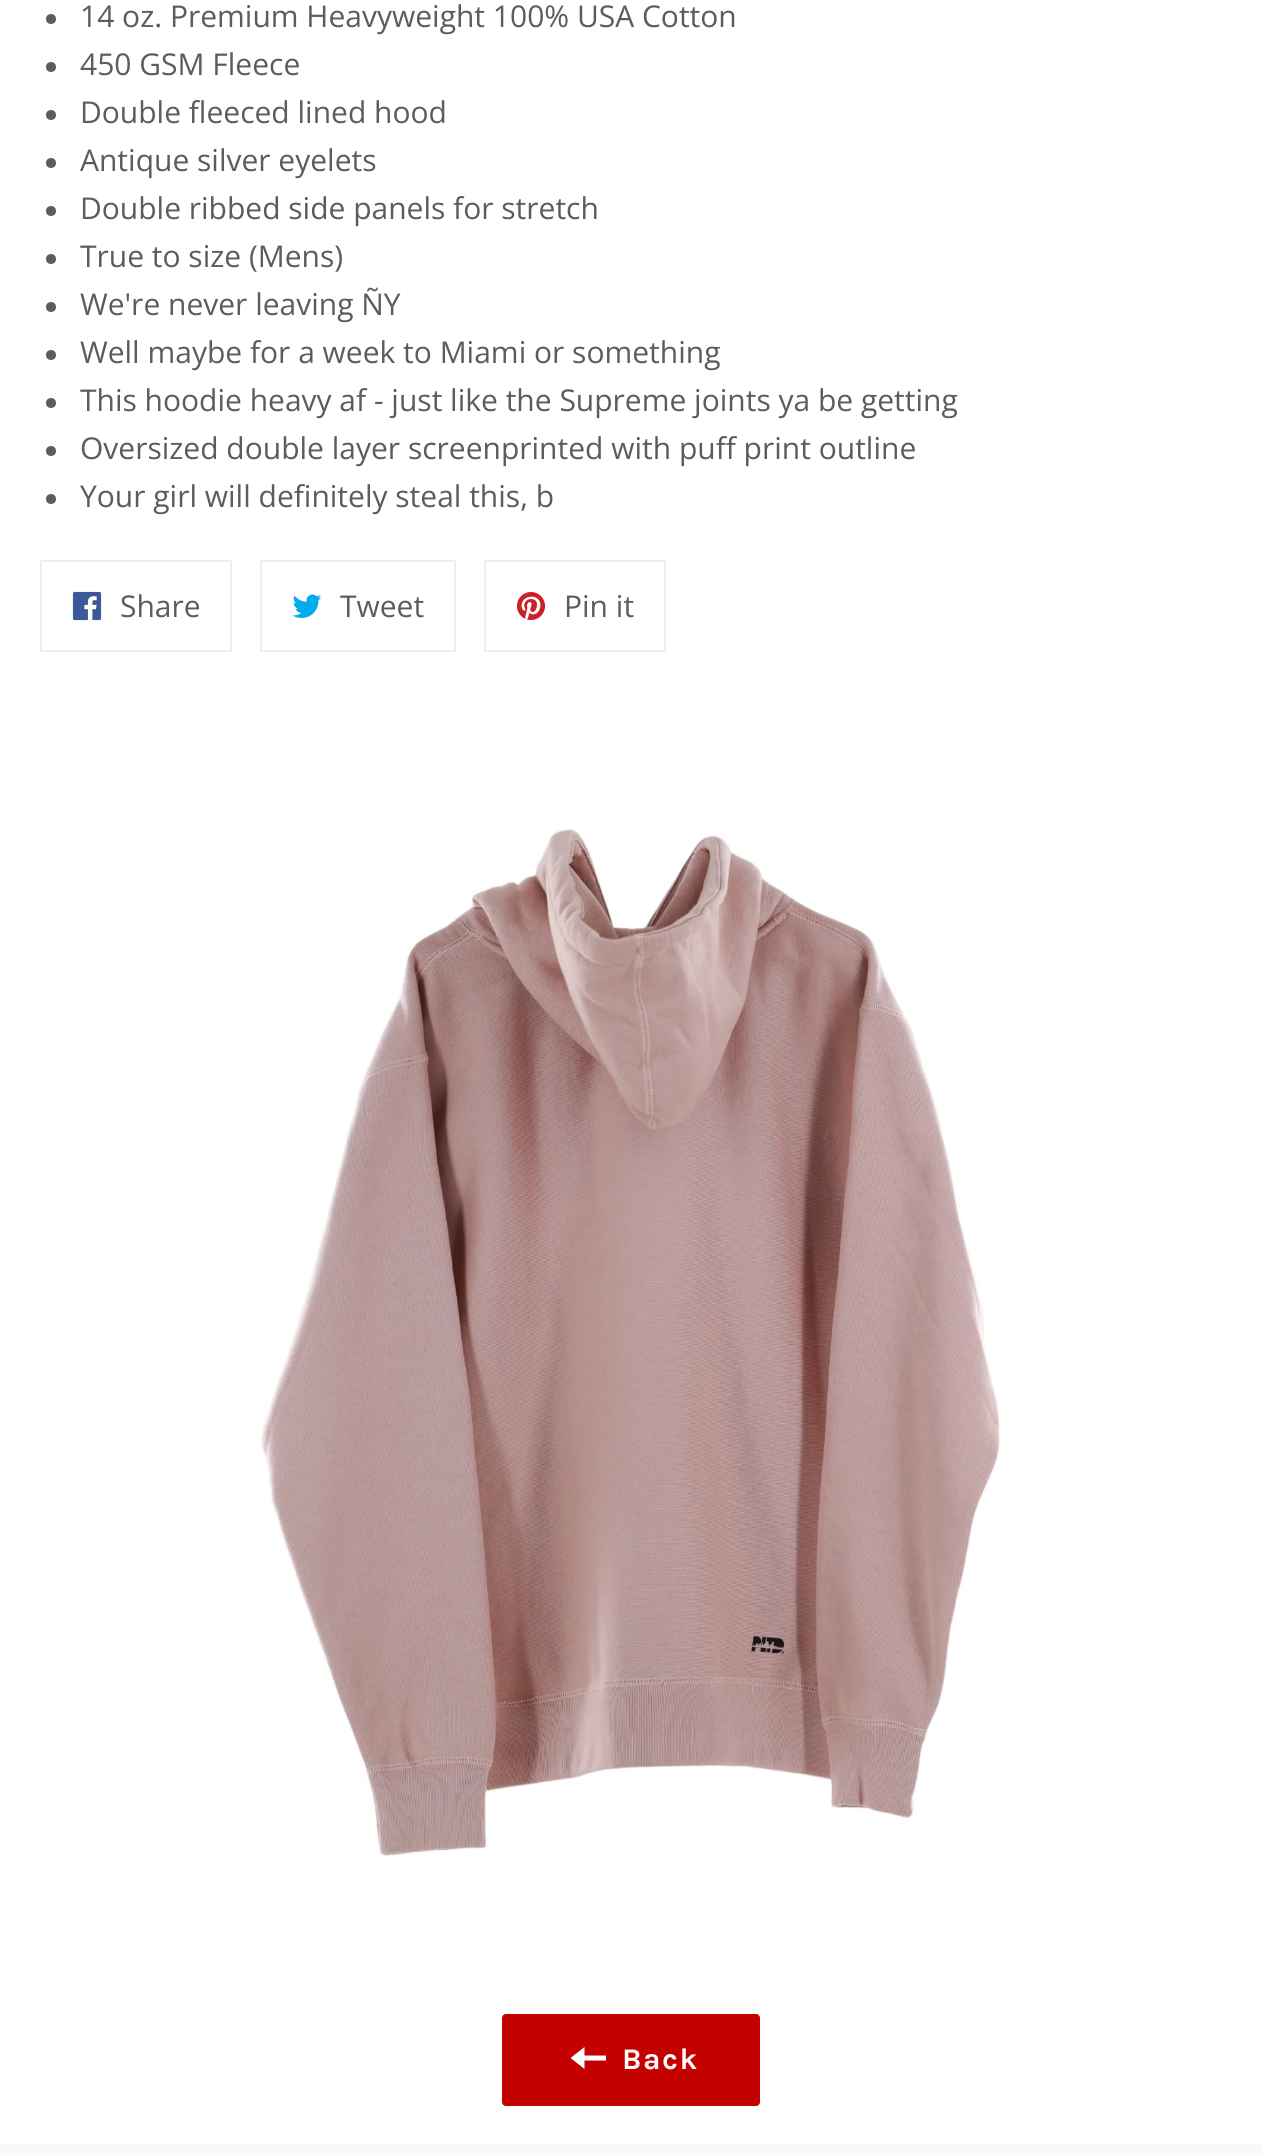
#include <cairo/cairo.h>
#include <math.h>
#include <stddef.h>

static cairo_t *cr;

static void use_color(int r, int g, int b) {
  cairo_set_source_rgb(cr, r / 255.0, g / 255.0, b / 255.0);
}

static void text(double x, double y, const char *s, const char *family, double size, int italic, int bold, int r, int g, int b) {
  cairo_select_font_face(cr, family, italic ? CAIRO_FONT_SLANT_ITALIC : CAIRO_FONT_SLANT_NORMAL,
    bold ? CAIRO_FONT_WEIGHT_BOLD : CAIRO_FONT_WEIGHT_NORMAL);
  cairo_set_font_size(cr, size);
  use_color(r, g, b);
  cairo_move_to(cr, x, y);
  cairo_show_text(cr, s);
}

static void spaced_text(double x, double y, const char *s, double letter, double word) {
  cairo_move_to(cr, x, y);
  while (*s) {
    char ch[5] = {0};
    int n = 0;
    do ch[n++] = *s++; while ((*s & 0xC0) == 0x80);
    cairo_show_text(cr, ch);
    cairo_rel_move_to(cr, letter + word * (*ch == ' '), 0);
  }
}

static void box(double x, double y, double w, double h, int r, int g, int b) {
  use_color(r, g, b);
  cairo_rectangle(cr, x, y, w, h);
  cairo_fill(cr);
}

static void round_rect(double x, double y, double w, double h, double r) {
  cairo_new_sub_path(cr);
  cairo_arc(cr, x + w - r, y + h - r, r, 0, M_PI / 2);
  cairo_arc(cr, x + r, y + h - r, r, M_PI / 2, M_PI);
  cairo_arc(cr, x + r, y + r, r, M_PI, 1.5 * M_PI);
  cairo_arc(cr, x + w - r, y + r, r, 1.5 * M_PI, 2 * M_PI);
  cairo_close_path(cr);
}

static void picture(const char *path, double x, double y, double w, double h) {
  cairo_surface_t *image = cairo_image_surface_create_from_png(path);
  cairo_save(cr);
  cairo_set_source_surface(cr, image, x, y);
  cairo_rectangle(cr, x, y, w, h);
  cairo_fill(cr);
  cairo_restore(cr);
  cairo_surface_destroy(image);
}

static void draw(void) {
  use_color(255, 255, 255);
  cairo_paint(cr);
  use_color(92, 92, 92);
  cairo_arc(cr, 51, 19, 5, 0, 2 * M_PI);
  cairo_fill(cr);
  cairo_arc(cr, 51, 67, 5, 0, 2 * M_PI);
  cairo_fill(cr);
  cairo_arc(cr, 51, 115, 5, 0, 2 * M_PI);
  cairo_fill(cr);
  cairo_arc(cr, 51, 163, 5, 0, 2 * M_PI);
  cairo_fill(cr);
  cairo_arc(cr, 51, 211, 5, 0, 2 * M_PI);
  cairo_fill(cr);
  cairo_arc(cr, 51, 259, 5, 0, 2 * M_PI);
  cairo_fill(cr);
  cairo_arc(cr, 51, 307, 5, 0, 2 * M_PI);
  cairo_fill(cr);
  cairo_arc(cr, 51, 355, 5, 0, 2 * M_PI);
  cairo_fill(cr);
  cairo_arc(cr, 51, 403, 5, 0, 2 * M_PI);
  cairo_fill(cr);
  cairo_arc(cr, 51, 451, 5, 0, 2 * M_PI);
  cairo_fill(cr);
  cairo_arc(cr, 51, 499, 5, 0, 2 * M_PI);
  cairo_fill(cr);
  cairo_rectangle(cr, 41, 561, 190, 90);
  use_color(238, 238, 238);
  cairo_stroke(cr);
  picture("img_01.png", 72, 591, 30, 30);
  cairo_rectangle(cr, 261, 561, 194, 90);
  cairo_stroke(cr);
  picture("img_02.png", 292, 594, 30, 24);
  cairo_rectangle(cr, 485, 561, 180, 90);
  cairo_stroke(cr);
  picture("img_03.png", 516, 592, 30, 28);
  picture("img_04.png", 260, 829, 740, 1027);
  use_color(197, 0, 0);
  round_rect(502, 2014, 258, 92, 4);
  cairo_fill(cr);
  use_color(255, 255, 255);
  cairo_new_path(cr);
  cairo_move_to(cr, 584.5, 2055.5);
  cairo_line_to(cr, 584.5, 2047);
  cairo_line_to(cr, 570.5, 2058);
  cairo_line_to(cr, 584.5, 2069);
  cairo_line_to(cr, 584.5, 2060.5);
  cairo_line_to(cr, 606, 2060.5);
  cairo_line_to(cr, 606, 2055.5);
  cairo_close_path(cr);
  cairo_fill(cr);
  box(0, 2144, 1262, 11, 249, 249, 249);
  text(80, 27, "14 oz. Premium Heavyweight 100% USA Cotton", "Open Sans", 30, 0, 0, 92, 92, 92);
  text(80, 75, "450 GSM Fleece", "Open Sans", 30, 0, 0, 92, 92, 92);
  text(80, 123, "Double fleeced lined hood", "Open Sans", 30, 0, 0, 92, 92, 92);
  text(80, 171, "Antique silver eyelets", "Open Sans", 30, 0, 0, 92, 92, 92);
  text(80, 219, "Double ribbed side panels for stretch", "Open Sans", 30, 0, 0, 92, 92, 92);
  text(80, 267, "True to size (Mens)", "Open Sans", 30, 0, 0, 92, 92, 92);
  text(80, 315, "We're never leaving ÑY", "Open Sans", 30, 0, 0, 92, 92, 92);
  text(80, 363, "Well maybe for a week to Miami or something", "Open Sans", 30, 0, 0, 92, 92, 92);
  text(80, 411, "This hoodie heavy af - just like the Supreme joints ya be getting", "Open Sans", 30, 0, 0, 92, 92, 92);
  text(80, 459, "Oversized double layer screenprinted with puff print outline", "Open Sans", 30, 0, 0, 92, 92, 92);
  text(80, 507, "Your girl will definitely steal this, b", "Open Sans", 30, 0, 0, 92, 92, 92);
  text(120, 617, "Share", "Open Sans", 30, 0, 0, 92, 92, 92);
  text(340, 617, "Tweet", "Open Sans", 30, 0, 0, 92, 92, 92);
  text(564, 617, "Pin it", "Open Sans", 30, 0, 0, 92, 92, 92);
  cairo_select_font_face(cr, "Karla", CAIRO_FONT_SLANT_NORMAL, CAIRO_FONT_WEIGHT_BOLD);
  use_color(255, 255, 255);
  spaced_text(622, 2069, "Back", 1.5, 0);
}

int main(void) {
  cairo_surface_t *surface = cairo_image_surface_create(CAIRO_FORMAT_RGB24, 1262, 2155);
  cr = cairo_create(surface);
  cairo_font_options_t *options = cairo_font_options_create();
  cairo_font_options_set_hint_metrics(options, CAIRO_HINT_METRICS_OFF);
  cairo_font_options_set_hint_style(options, CAIRO_HINT_STYLE_NONE);
  cairo_set_font_options(cr, options);
  cairo_set_miter_limit(cr, 4);
  draw();
  cairo_surface_write_to_png(surface, "out.png");
  cairo_font_options_destroy(options);
  cairo_destroy(cr);
  cairo_surface_destroy(surface);
  return 0;
}
